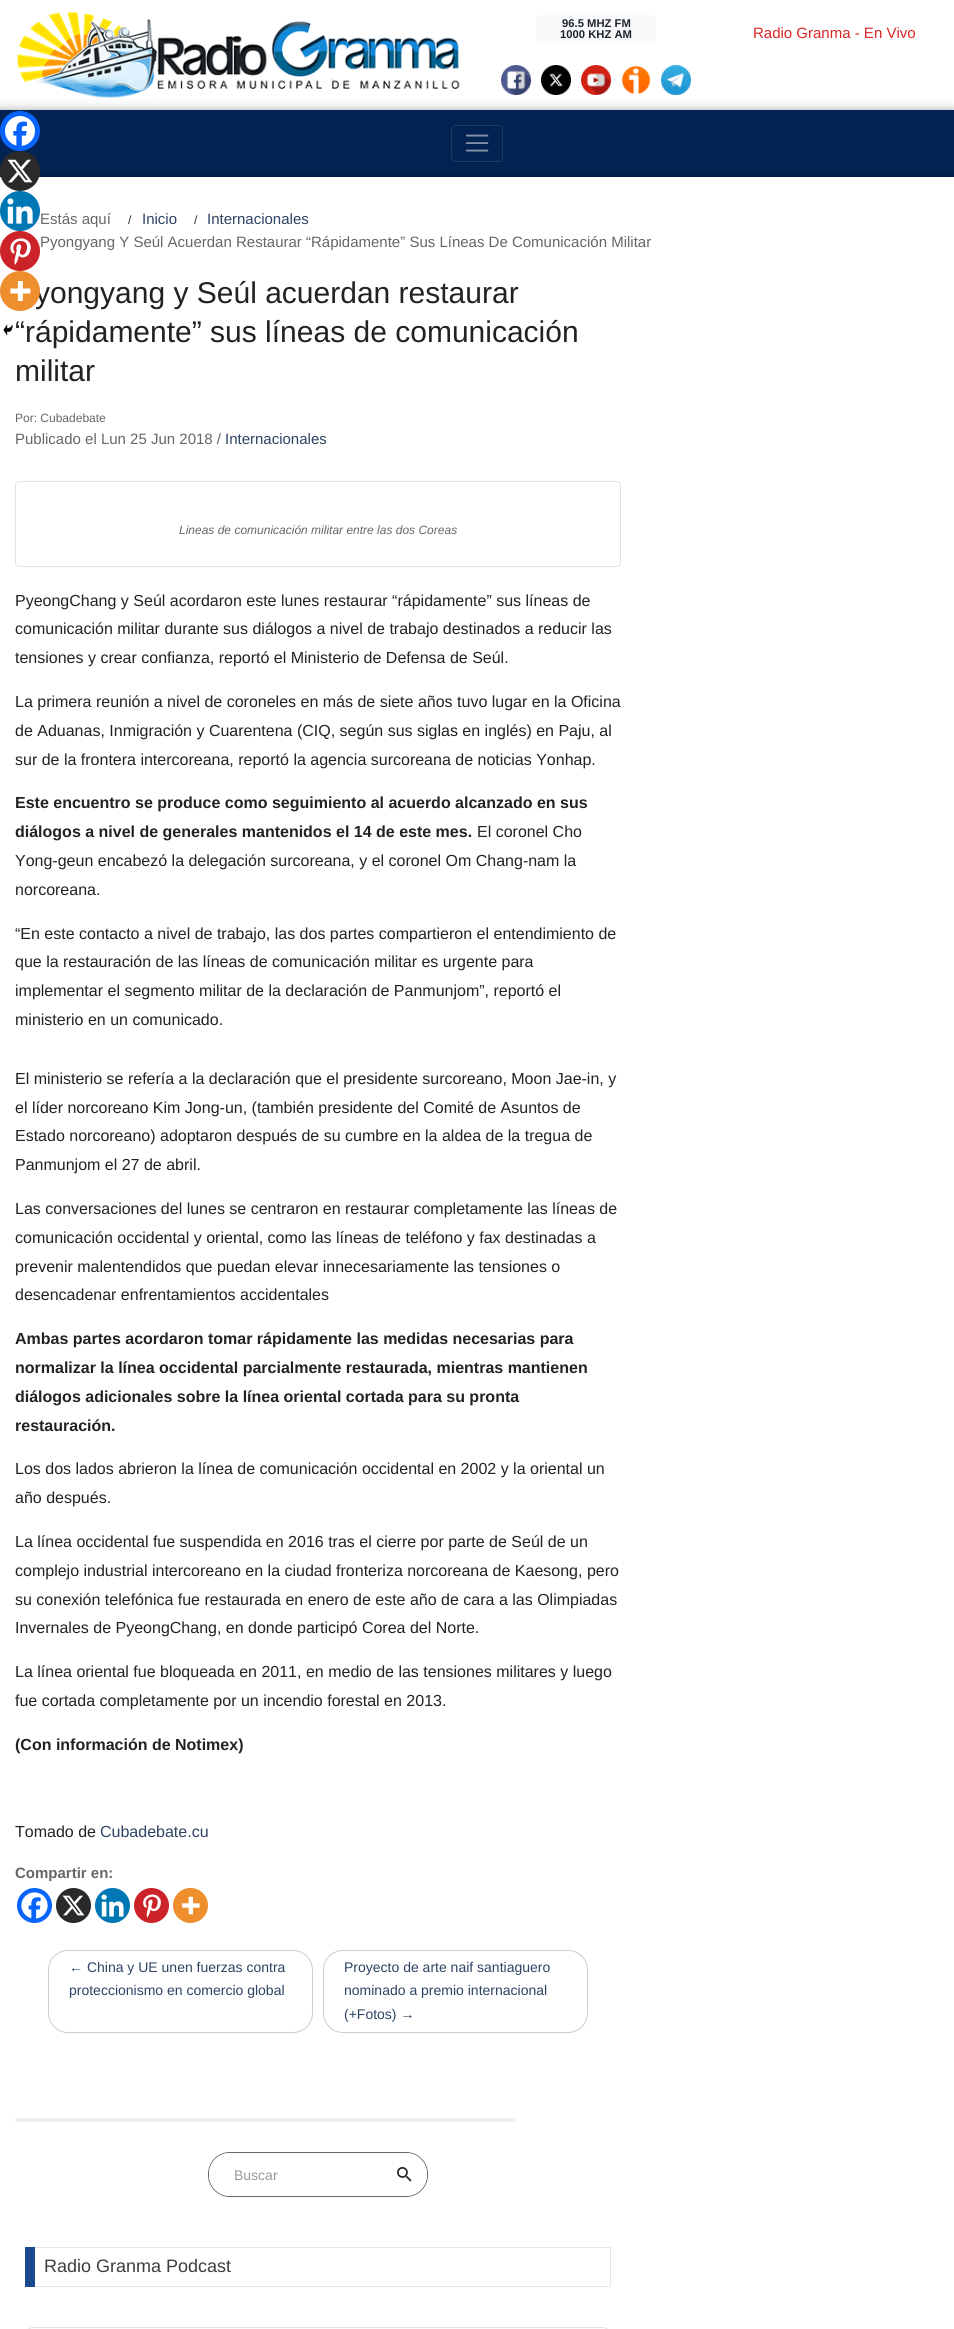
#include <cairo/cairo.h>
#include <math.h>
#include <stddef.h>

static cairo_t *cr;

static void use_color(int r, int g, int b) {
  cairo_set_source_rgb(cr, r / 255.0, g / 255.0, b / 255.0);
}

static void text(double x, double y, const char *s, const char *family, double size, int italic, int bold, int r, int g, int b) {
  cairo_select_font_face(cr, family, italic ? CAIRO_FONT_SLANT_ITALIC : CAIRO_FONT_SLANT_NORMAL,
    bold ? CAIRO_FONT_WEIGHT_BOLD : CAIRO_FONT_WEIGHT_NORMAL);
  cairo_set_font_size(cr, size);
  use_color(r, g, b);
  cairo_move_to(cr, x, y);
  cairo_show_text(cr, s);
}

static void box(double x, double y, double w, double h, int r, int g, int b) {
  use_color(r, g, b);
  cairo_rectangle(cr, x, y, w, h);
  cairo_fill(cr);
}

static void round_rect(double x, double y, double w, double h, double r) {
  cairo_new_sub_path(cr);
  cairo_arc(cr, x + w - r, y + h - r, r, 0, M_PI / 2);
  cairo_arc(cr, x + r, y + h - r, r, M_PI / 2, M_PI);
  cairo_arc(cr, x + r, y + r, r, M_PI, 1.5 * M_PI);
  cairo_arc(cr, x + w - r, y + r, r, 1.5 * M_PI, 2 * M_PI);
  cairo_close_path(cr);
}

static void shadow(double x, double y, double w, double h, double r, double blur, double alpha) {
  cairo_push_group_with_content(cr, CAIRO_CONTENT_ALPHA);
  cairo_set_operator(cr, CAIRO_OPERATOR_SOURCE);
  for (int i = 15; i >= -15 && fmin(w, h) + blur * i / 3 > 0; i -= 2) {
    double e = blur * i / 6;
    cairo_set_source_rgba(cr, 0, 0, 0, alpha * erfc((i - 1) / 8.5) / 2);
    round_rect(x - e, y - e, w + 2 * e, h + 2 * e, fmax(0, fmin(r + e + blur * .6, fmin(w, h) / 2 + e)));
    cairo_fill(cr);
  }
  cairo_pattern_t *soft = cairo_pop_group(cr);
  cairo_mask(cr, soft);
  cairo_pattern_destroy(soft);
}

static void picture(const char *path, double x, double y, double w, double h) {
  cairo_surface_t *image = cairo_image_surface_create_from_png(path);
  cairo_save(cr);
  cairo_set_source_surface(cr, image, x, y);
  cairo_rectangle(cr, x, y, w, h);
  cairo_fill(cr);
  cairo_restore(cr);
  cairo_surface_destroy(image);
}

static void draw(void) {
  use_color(255, 255, 255);
  cairo_paint(cr);
  use_color(0, 0, 0);
  shadow(0, 110, 954, 67, 0, 5, 0.35);
  picture("img_01.png", 17, 11, 443, 87);
  use_color(248, 249, 250);
  round_rect(536, 15, 120, 28, 4);
  cairo_fill(cr);
  picture("img_02.png", 501, 65, 30, 30);
  picture("img_03.png", 541, 65, 30, 30);
  picture("img_04.png", 581, 65, 30, 30);
  picture("img_05.png", 622, 66, 29, 29);
  picture("img_06.png", 661, 65, 30, 30);
  box(0, 110, 954, 67, 2, 35, 82);
  use_color(0, 0, 0);
  shadow(0, 177, 954, 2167, 0, 5, 0.35);
  round_rect(451.5, 125.5, 51, 36, 3.5);
  use_color(27, 57, 99);
  cairo_set_line_width(cr, 1);
  cairo_stroke(cr);
  picture("img_07.png", 465, 134, 24, 18);
  box(0, 177, 954, 2152, 255, 255, 255);
  use_color(7, 101, 254);
  cairo_arc(cr, 20, 131, 20, 0, 2 * M_PI);
  cairo_fill(cr);
  picture("img_08.png", 5, 116, 30, 30);
  use_color(42, 42, 42);
  cairo_arc(cr, 20, 171, 20, 0, 2 * M_PI);
  cairo_fill(cr);
  picture("img_09.png", 7, 159, 26, 24);
  use_color(0, 119, 181);
  cairo_arc(cr, 20, 211, 20, 0, 2 * M_PI);
  cairo_fill(cr);
  picture("img_10.png", 7, 198, 26, 26);
  use_color(204, 35, 41);
  cairo_arc(cr, 20, 251, 20, 0, 2 * M_PI);
  cairo_fill(cr);
  picture("img_11.png", 10, 238, 21, 27);
  picture("img_13.png", 3, 324, 10, 12);
  round_rect(15.5, 481.5, 605, 85, 3.5);
  use_color(222, 226, 230);
  cairo_stroke(cr);
  use_color(7, 101, 254);
  cairo_arc(cr, 34.5, 1905.5, 17.5, 0, 2 * M_PI);
  cairo_fill(cr);
  picture("img_14.png", 21, 1892, 27, 27);
  use_color(42, 42, 42);
  cairo_arc(cr, 73.5, 1905.5, 17.5, 0, 2 * M_PI);
  cairo_fill(cr);
  picture("img_15.png", 62, 1895, 23, 21);
  use_color(0, 119, 181);
  cairo_arc(cr, 112.5, 1905.5, 17.5, 0, 2 * M_PI);
  cairo_fill(cr);
  picture("img_16.png", 101, 1894, 23, 23);
  use_color(204, 35, 41);
  cairo_arc(cr, 151.5, 1905.5, 17.5, 0, 2 * M_PI);
  cairo_fill(cr);
  picture("img_17.png", 143, 1894, 18, 24);
  use_color(238, 142, 45);
  cairo_arc(cr, 190.5, 1905.5, 17.5, 0, 2 * M_PI);
  cairo_fill(cr);
  picture("img_18.png", 182, 1896, 18, 19);
  round_rect(48.5, 1950.5, 264, 82, 19.5);
  use_color(204, 204, 204);
  cairo_stroke(cr);
  round_rect(323.5, 1950.5, 264, 82, 19.5);
  cairo_stroke(cr);
  box(15, 2118, 500, 4, 241, 241, 241);
  round_rect(208.5, 2152.5, 219, 44, 21.5);
  use_color(102, 102, 102);
  cairo_stroke(cr);
  use_color(255, 255, 255);
  round_rect(209, 2153, 218, 43, 21);
  cairo_fill(cr);
  picture("img_19.png", 397, 2167, 15, 15);
  cairo_rectangle(cr, 25.5, 2247.5, 585, 39);
  use_color(230, 230, 230);
  cairo_stroke(cr);
  box(25, 2247, 10, 40, 26, 74, 141);
  use_color(252, 252, 253);
  round_rect(25.5, 2327.5, 585, 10, 7.5);
  cairo_fill_preserve(cr);
  use_color(227, 227, 228);
  cairo_stroke(cr);
  text(562, 27, "96.5 MHZ FM", "Liberation Sans", 11.25, 0, 1, 33, 37, 41);
  text(560, 38, "1000 KHZ AM", "Liberation Sans", 11.25, 0, 1, 33, 37, 41);
  text(753, 38, "Radio Granma - En Vivo", "Liberation Sans", 15, 0, 0, 219, 38, 38);
  text(40, 224, "Estás aquí", "Liberation Sans", 15, 0, 0, 102, 102, 102);
  text(128, 224, "/", "Liberation Sans", 12, 0, 0, 49, 40, 40);
  text(142, 224, "Inicio", "Liberation Sans", 15, 0, 0, 45, 66, 100);
  text(194, 224, "/", "Liberation Sans", 12, 0, 0, 49, 40, 40);
  text(207, 224, "Internacionales", "Liberation Sans", 15, 0, 0, 45, 66, 100);
  text(40, 247, "Pyongyang Y Seúl Acuerdan Restaurar “Rápidamente” Sus Líneas De Comunicación Militar", "Liberation Sans", 15, 0, 0, 102, 102, 102);
  text(35, 303, "yongyang y Seúl acuerdan restaurar", "Liberation Sans", 30, 0, 0, 34, 34, 34);
  text(15, 342, "“rápidamente” sus líneas de comunicación", "Liberation Sans", 30, 0, 0, 34, 34, 34);
  text(15, 381, "militar", "Liberation Sans", 30, 0, 0, 34, 34, 34);
  text(15, 422, "Por: Cubadebate", "Liberation Sans", 12, 0, 0, 102, 102, 102);
  text(15, 444, "Publicado el Lun 25 Jun 2018 /", "Liberation Sans", 15, 0, 0, 102, 102, 102);
  text(225, 444, "Internacionales", "Liberation Sans", 15, 0, 0, 45, 66, 100);
  use_color(238, 142, 45);
  cairo_new_path(cr);
  cairo_arc(cr, 20, 291, 20, 0, 2 * M_PI);
  cairo_fill(cr);
  picture("img_12.png", 10, 281, 21, 20);
  text(179, 534, "Lineas de comunicación militar entre las dos Coreas", "Liberation Sans", 12, 1, 0, 102, 102, 102);
  text(15, 606, "PyeongChang y Seúl acordaron este lunes restaurar “rápidamente” sus líneas de", "Liberation Sans", 16, 0, 0, 34, 34, 34);
  text(15, 634, "comunicación militar durante sus diálogos a nivel de trabajo destinados a reducir las", "Liberation Sans", 16, 0, 0, 34, 34, 34);
  text(15, 663, "tensiones y crear confianza, reportó el Ministerio de Defensa de Seúl.", "Liberation Sans", 16, 0, 0, 34, 34, 34);
  text(15, 707, "La primera reunión a nivel de coroneles en más de siete años tuvo lugar en la Oficina", "Liberation Sans", 16, 0, 0, 34, 34, 34);
  text(15, 736, "de Aduanas, Inmigración y Cuarentena (CIQ, según sus siglas en inglés) en Paju, al", "Liberation Sans", 16, 0, 0, 34, 34, 34);
  text(15, 765, "sur de la frontera intercoreana, reportó la agencia surcoreana de noticias Yonhap.", "Liberation Sans", 16, 0, 0, 34, 34, 34);
  text(15, 808, "Este encuentro se produce como seguimiento al acuerdo alcanzado en sus", "Liberation Sans", 16, 0, 1, 34, 34, 34);
  text(15, 837, "diálogos a nivel de generales mantenidos el 14 de este mes.", "Liberation Sans", 16, 0, 1, 34, 34, 34);
  text(477, 837, "El coronel Cho", "Liberation Sans", 16, 0, 0, 34, 34, 34);
  text(15, 866, "Yong-geun encabezó la delegación surcoreana, y el coronel Om Chang-nam la", "Liberation Sans", 16, 0, 0, 34, 34, 34);
  text(15, 895, "norcoreana.", "Liberation Sans", 16, 0, 0, 34, 34, 34);
  text(15, 939, "“En este contacto a nivel de trabajo, las dos partes compartieron el entendimiento de", "Liberation Sans", 16, 0, 0, 34, 34, 34);
  text(15, 967, "que la restauración de las líneas de comunicación militar es urgente para", "Liberation Sans", 16, 0, 0, 34, 34, 34);
  text(15, 996, "implementar el segmento militar de la declaración de Panmunjom”, reportó el", "Liberation Sans", 16, 0, 0, 34, 34, 34);
  text(15, 1025, "ministerio en un comunicado.", "Liberation Sans", 16, 0, 0, 34, 34, 34);
  text(15, 1084, "El ministerio se refería a la declaración que el presidente surcoreano, Moon Jae-in, y", "Liberation Sans", 16, 0, 0, 34, 34, 34);
  text(15, 1113, "el líder norcoreano Kim Jong-un, (también presidente del Comité de Asuntos de", "Liberation Sans", 16, 0, 0, 34, 34, 34);
  text(15, 1141, "Estado norcoreano) adoptaron después de su cumbre en la aldea de la tregua de", "Liberation Sans", 16, 0, 0, 34, 34, 34);
  text(15, 1170, "Panmunjom el 27 de abril.", "Liberation Sans", 16, 0, 0, 34, 34, 34);
  text(15, 1214, "Las conversaciones del lunes se centraron en restaurar completamente las líneas de", "Liberation Sans", 16, 0, 0, 34, 34, 34);
  text(15, 1243, "comunicación occidental y oriental, como las líneas de teléfono y fax destinadas a", "Liberation Sans", 16, 0, 0, 34, 34, 34);
  text(15, 1272, "prevenir malentendidos que puedan elevar innecesariamente las tensiones o", "Liberation Sans", 16, 0, 0, 34, 34, 34);
  text(15, 1300, "desencadenar enfrentamientos accidentales", "Liberation Sans", 16, 0, 0, 34, 34, 34);
  text(15, 1344, "Ambas partes acordaron tomar rápidamente las medidas necesarias para", "Liberation Sans", 16, 0, 1, 34, 34, 34);
  text(15, 1373, "normalizar la línea occidental parcialmente restaurada, mientras mantienen", "Liberation Sans", 16, 0, 1, 34, 34, 34);
  text(15, 1402, "diálogos adicionales sobre la línea oriental cortada para su pronta", "Liberation Sans", 16, 0, 1, 34, 34, 34);
  text(15, 1431, "restauración.", "Liberation Sans", 16, 0, 1, 34, 34, 34);
  text(15, 1474, "Los dos lados abrieron la línea de comunicación occidental en 2002 y la oriental un", "Liberation Sans", 16, 0, 0, 34, 34, 34);
  text(15, 1503, "año después.", "Liberation Sans", 16, 0, 0, 34, 34, 34);
  text(15, 1547, "La línea occidental fue suspendida en 2016 tras el cierre por parte de Seúl de un", "Liberation Sans", 16, 0, 0, 34, 34, 34);
  text(15, 1576, "complejo industrial intercoreano en la ciudad fronteriza norcoreana de Kaesong, pero", "Liberation Sans", 16, 0, 0, 34, 34, 34);
  text(15, 1605, "su conexión telefónica fue restaurada en enero de este año de cara a las Olimpiadas", "Liberation Sans", 16, 0, 0, 34, 34, 34);
  text(15, 1633, "Invernales de PyeongChang, en donde participó Corea del Norte.", "Liberation Sans", 16, 0, 0, 34, 34, 34);
  text(15, 1677, "La línea oriental fue bloqueada en 2011, en medio de las tensiones militares y luego", "Liberation Sans", 16, 0, 0, 34, 34, 34);
  text(15, 1706, "fue cortada completamente por un incendio forestal en 2013.", "Liberation Sans", 16, 0, 0, 34, 34, 34);
  text(15, 1750, "(Con información de Notimex)", "Liberation Sans", 16, 0, 1, 34, 34, 34);
  text(15, 1837, "Tomado de", "Liberation Sans", 16, 0, 0, 34, 34, 34);
  text(100, 1837, "Cubadebate.cu", "Liberation Sans", 16, 0, 0, 45, 66, 100);
  text(15, 1878, "Compartir en:", "Liberation Sans", 15, 0, 1, 102, 102, 102);
  text(69, 1972, "← China y UE unen fuerzas contra", "Liberation Sans", 14, 0, 0, 45, 66, 100);
  text(69, 1995, "proteccionismo en comercio global", "Liberation Sans", 14, 0, 0, 45, 66, 100);
  text(344, 1972, "Proyecto de arte naif santiaguero", "Liberation Sans", 14, 0, 0, 45, 66, 100);
  text(344, 1995, "nominado a premio internacional", "Liberation Sans", 14, 0, 0, 45, 66, 100);
  text(344, 2019, "(+Fotos) →", "Liberation Sans", 14, 0, 0, 45, 66, 100);
  text(234, 2180, "Buscar", "Liberation Sans", 14, 0, 0, 153, 153, 153);
  text(44, 2272, "Radio Granma Podcast", "Liberation Sans", 18, 0, 0, 61, 61, 63);
}

int main(void) {
  cairo_surface_t *surface = cairo_image_surface_create(CAIRO_FORMAT_RGB24, 954, 2329);
  cr = cairo_create(surface);
  cairo_font_options_t *options = cairo_font_options_create();
  cairo_font_options_set_hint_metrics(options, CAIRO_HINT_METRICS_OFF);
  cairo_font_options_set_hint_style(options, CAIRO_HINT_STYLE_NONE);
  cairo_set_font_options(cr, options);
  cairo_set_miter_limit(cr, 4);
  draw();
  cairo_surface_write_to_png(surface, "out.png");
  cairo_font_options_destroy(options);
  cairo_destroy(cr);
  cairo_surface_destroy(surface);
  return 0;
}
